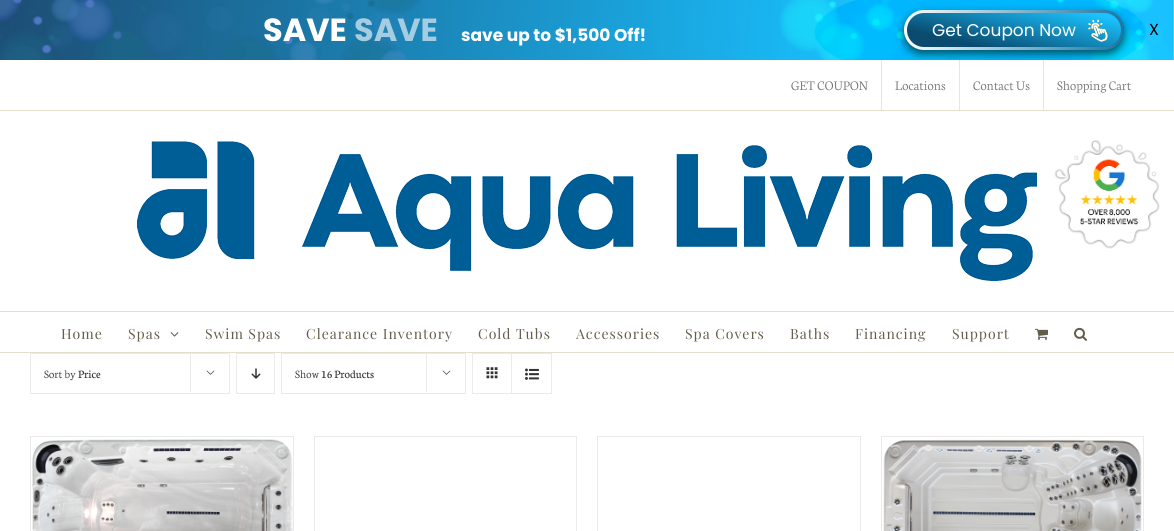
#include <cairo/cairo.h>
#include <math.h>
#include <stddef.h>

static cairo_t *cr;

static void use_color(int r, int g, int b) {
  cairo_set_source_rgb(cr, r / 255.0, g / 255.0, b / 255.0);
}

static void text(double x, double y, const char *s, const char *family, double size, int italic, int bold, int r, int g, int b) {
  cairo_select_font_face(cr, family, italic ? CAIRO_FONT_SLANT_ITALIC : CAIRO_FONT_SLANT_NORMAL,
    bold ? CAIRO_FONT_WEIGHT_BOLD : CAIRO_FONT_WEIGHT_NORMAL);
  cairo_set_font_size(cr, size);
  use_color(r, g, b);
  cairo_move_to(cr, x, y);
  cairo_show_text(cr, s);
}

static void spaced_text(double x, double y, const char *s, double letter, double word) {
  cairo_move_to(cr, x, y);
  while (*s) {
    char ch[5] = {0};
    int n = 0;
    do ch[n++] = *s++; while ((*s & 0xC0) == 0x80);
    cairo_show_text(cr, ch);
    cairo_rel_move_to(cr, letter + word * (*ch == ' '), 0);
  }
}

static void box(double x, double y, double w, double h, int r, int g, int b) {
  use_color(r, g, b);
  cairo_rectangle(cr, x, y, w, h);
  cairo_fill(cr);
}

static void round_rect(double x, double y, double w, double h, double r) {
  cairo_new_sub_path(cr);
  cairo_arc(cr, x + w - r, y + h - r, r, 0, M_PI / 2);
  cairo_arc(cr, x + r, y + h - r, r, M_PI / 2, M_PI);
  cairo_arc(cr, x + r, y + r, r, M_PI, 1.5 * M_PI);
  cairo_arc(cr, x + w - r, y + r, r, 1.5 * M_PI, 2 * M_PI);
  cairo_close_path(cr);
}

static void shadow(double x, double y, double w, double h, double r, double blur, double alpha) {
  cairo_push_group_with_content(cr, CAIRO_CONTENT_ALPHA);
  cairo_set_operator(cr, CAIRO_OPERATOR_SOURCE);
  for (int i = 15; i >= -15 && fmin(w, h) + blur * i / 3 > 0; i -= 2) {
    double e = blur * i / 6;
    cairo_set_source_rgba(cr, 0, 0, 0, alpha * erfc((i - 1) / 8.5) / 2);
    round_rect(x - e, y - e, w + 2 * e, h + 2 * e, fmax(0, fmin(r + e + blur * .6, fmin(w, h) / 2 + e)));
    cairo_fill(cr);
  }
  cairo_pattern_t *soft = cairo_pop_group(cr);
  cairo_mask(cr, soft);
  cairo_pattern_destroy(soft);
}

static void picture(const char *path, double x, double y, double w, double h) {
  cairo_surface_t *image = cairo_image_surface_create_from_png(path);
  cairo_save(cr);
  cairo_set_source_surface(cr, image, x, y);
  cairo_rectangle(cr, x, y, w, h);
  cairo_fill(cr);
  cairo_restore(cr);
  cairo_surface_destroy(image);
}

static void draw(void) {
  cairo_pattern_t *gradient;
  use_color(255, 255, 255);
  cairo_paint(cr);
  picture("img_01.png", 0, 0, 1174, 60);
  use_color(0, 81, 97);
  shadow(904, 14, 220, 40, 20, 4.5, 1);
  gradient = cairo_pattern_create_linear(904, 30, 1124, 30);
  cairo_pattern_add_color_stop_rgba(gradient, 0, 1, 1, 1, 1);
  cairo_pattern_add_color_stop_rgba(gradient, 1, 0.102, 0.463, 0.639, 1);
  cairo_set_source(cr, gradient);
  cairo_pattern_destroy(gradient);
  round_rect(904, 10, 220, 40, 20);
  cairo_fill(cr);
  gradient = cairo_pattern_create_linear(1005, 69, 1023, -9);
  cairo_pattern_add_color_stop_rgba(gradient, 0.2, 0.039, 0.294, 0.435, 1);
  cairo_pattern_add_color_stop_rgba(gradient, 0.92, 0.102, 0.761, 1, 1);
  cairo_set_source(cr, gradient);
  cairo_pattern_destroy(gradient);
  round_rect(907, 13, 214, 34, 17);
  cairo_fill(cr);
  picture("img_02.png", 1088, 19, 20, 23);
  box(910, 60, 208, 4, 255, 255, 255);
  box(0, 110, 1174, 1, 228, 222, 205);
  box(881, 60, 1, 50, 229, 229, 229);
  box(959, 60, 1, 50, 229, 229, 229);
  box(1043, 60, 1, 50, 229, 229, 229);
  box(0, 311, 1174, 1, 228, 222, 205);
  picture("img_03.png", 137, 141, 900, 140);
  box(0, 352, 1174, 1, 228, 222, 205);
  picture("img_04.png", 170, 332, 9, 5);
  picture("img_05.png", 1035, 328, 13, 12);
  picture("img_06.png", 1074, 327, 13, 14);
  cairo_rectangle(cr, 30.5, 353.5, 199, 40);
  use_color(234, 234, 234);
  cairo_set_line_width(cr, 1);
  cairo_stroke(cr);
  box(190, 353, 1, 39, 234, 234, 234);
  picture("img_07.png", 206, 370, 9, 5);
  cairo_rectangle(cr, 236.5, 353.5, 38, 40);
  cairo_stroke(cr);
  picture("img_08.png", 251, 368, 10, 11);
  cairo_rectangle(cr, 281.5, 353.5, 184, 40);
  cairo_stroke(cr);
  box(426, 353, 1, 39, 234, 234, 234);
  picture("img_07.png", 442, 370, 9, 5);
  cairo_rectangle(cr, 472.5, 353.5, 79, 40);
  cairo_stroke(cr);
  box(511, 354, 1, 39, 234, 234, 234);
  picture("img_09.png", 486, 367, 12, 12);
  picture("img_10.png", 525, 368, 14, 12);
  box(30, 436, 264, 1, 235, 234, 234);
  box(293, 436, 1, 95, 235, 234, 234);
  box(30, 436, 1, 95, 235, 234, 234);
  picture("img_11.png", 32, 439, 261, 92);
  box(314, 436, 263, 1, 235, 234, 234);
  box(576, 436, 1, 95, 235, 234, 234);
  box(314, 436, 1, 95, 235, 234, 234);
  box(597, 436, 264, 1, 235, 234, 234);
  box(860, 436, 1, 95, 235, 234, 234);
  box(597, 436, 1, 95, 235, 234, 234);
  box(881, 436, 263, 1, 235, 234, 234);
  box(1143, 436, 1, 95, 235, 234, 234);
  box(881, 436, 1, 95, 235, 234, 234);
  picture("img_12.png", 883, 439, 259, 92);
  picture("img_13.png", 1054, 140, 106, 109);
  text(263, 41, "SAVE", "Poppins", 32, 0, 1, 255, 255, 255);
  text(354, 41, "SAVE", "Poppins", 32, 0, 1, 165, 205, 225);
  text(461, 41, "save up to $1,500 Off!", "Poppins", 17, 0, 1, 255, 255, 255);
  text(932, 36, "Get Coupon Now", "Poppins", 17, 0, 0, 255, 255, 255);
  text(1149, 35, "X", "Poppins", 16, 0, 0, 0, 0, 0);
  text(791, 90, "GET COUPON", "Neuton Light", 14, 0, 0, 116, 116, 116);
  text(895, 90, "Locations", "Neuton Light", 14, 0, 0, 116, 116, 116);
  text(973, 90, "Contact Us", "Neuton Light", 14, 0, 0, 116, 116, 116);
  text(1057, 90, "Shopping Cart", "Neuton Light", 14, 0, 0, 116, 116, 116);
  cairo_select_font_face(cr, "Playfair Display", CAIRO_FONT_SLANT_NORMAL, CAIRO_FONT_WEIGHT_NORMAL);
  use_color(100, 93, 75);
  spaced_text(61, 339, "Home", 1, 0);
  spaced_text(128, 339, "Spas", 1, 0);
  spaced_text(205, 339, "Swim Spas", 1, 0);
  spaced_text(306, 339, "Clearance Inventory", 1, 0);
  spaced_text(478, 339, "Cold Tubs", 1, 0);
  spaced_text(576, 339, "Accessories", 1, 0);
  spaced_text(685, 339, "Spa Covers", 1, 0);
  spaced_text(790, 339, "Baths", 1, 0);
  spaced_text(855, 339, "Financing", 1, 0);
  spaced_text(952, 339, "Support", 1, 0);
  text(44, 378, "Sort by", "Neuton Light", 12, 0, 0, 51, 51, 51);
  text(78, 378, "Price", "Neuton", 12, 0, 0, 51, 51, 51);
  text(295, 378, "Show", "Neuton Light", 12, 0, 0, 51, 51, 51);
  text(321, 378, "16 Products", "Neuton", 12, 0, 0, 51, 51, 51);
}

int main(void) {
  cairo_surface_t *surface = cairo_image_surface_create(CAIRO_FORMAT_RGB24, 1174, 531);
  cr = cairo_create(surface);
  cairo_font_options_t *options = cairo_font_options_create();
  cairo_font_options_set_hint_metrics(options, CAIRO_HINT_METRICS_OFF);
  cairo_font_options_set_hint_style(options, CAIRO_HINT_STYLE_NONE);
  cairo_set_font_options(cr, options);
  cairo_set_miter_limit(cr, 4);
  draw();
  cairo_surface_write_to_png(surface, "out.png");
  cairo_font_options_destroy(options);
  cairo_destroy(cr);
  cairo_surface_destroy(surface);
  return 0;
}
